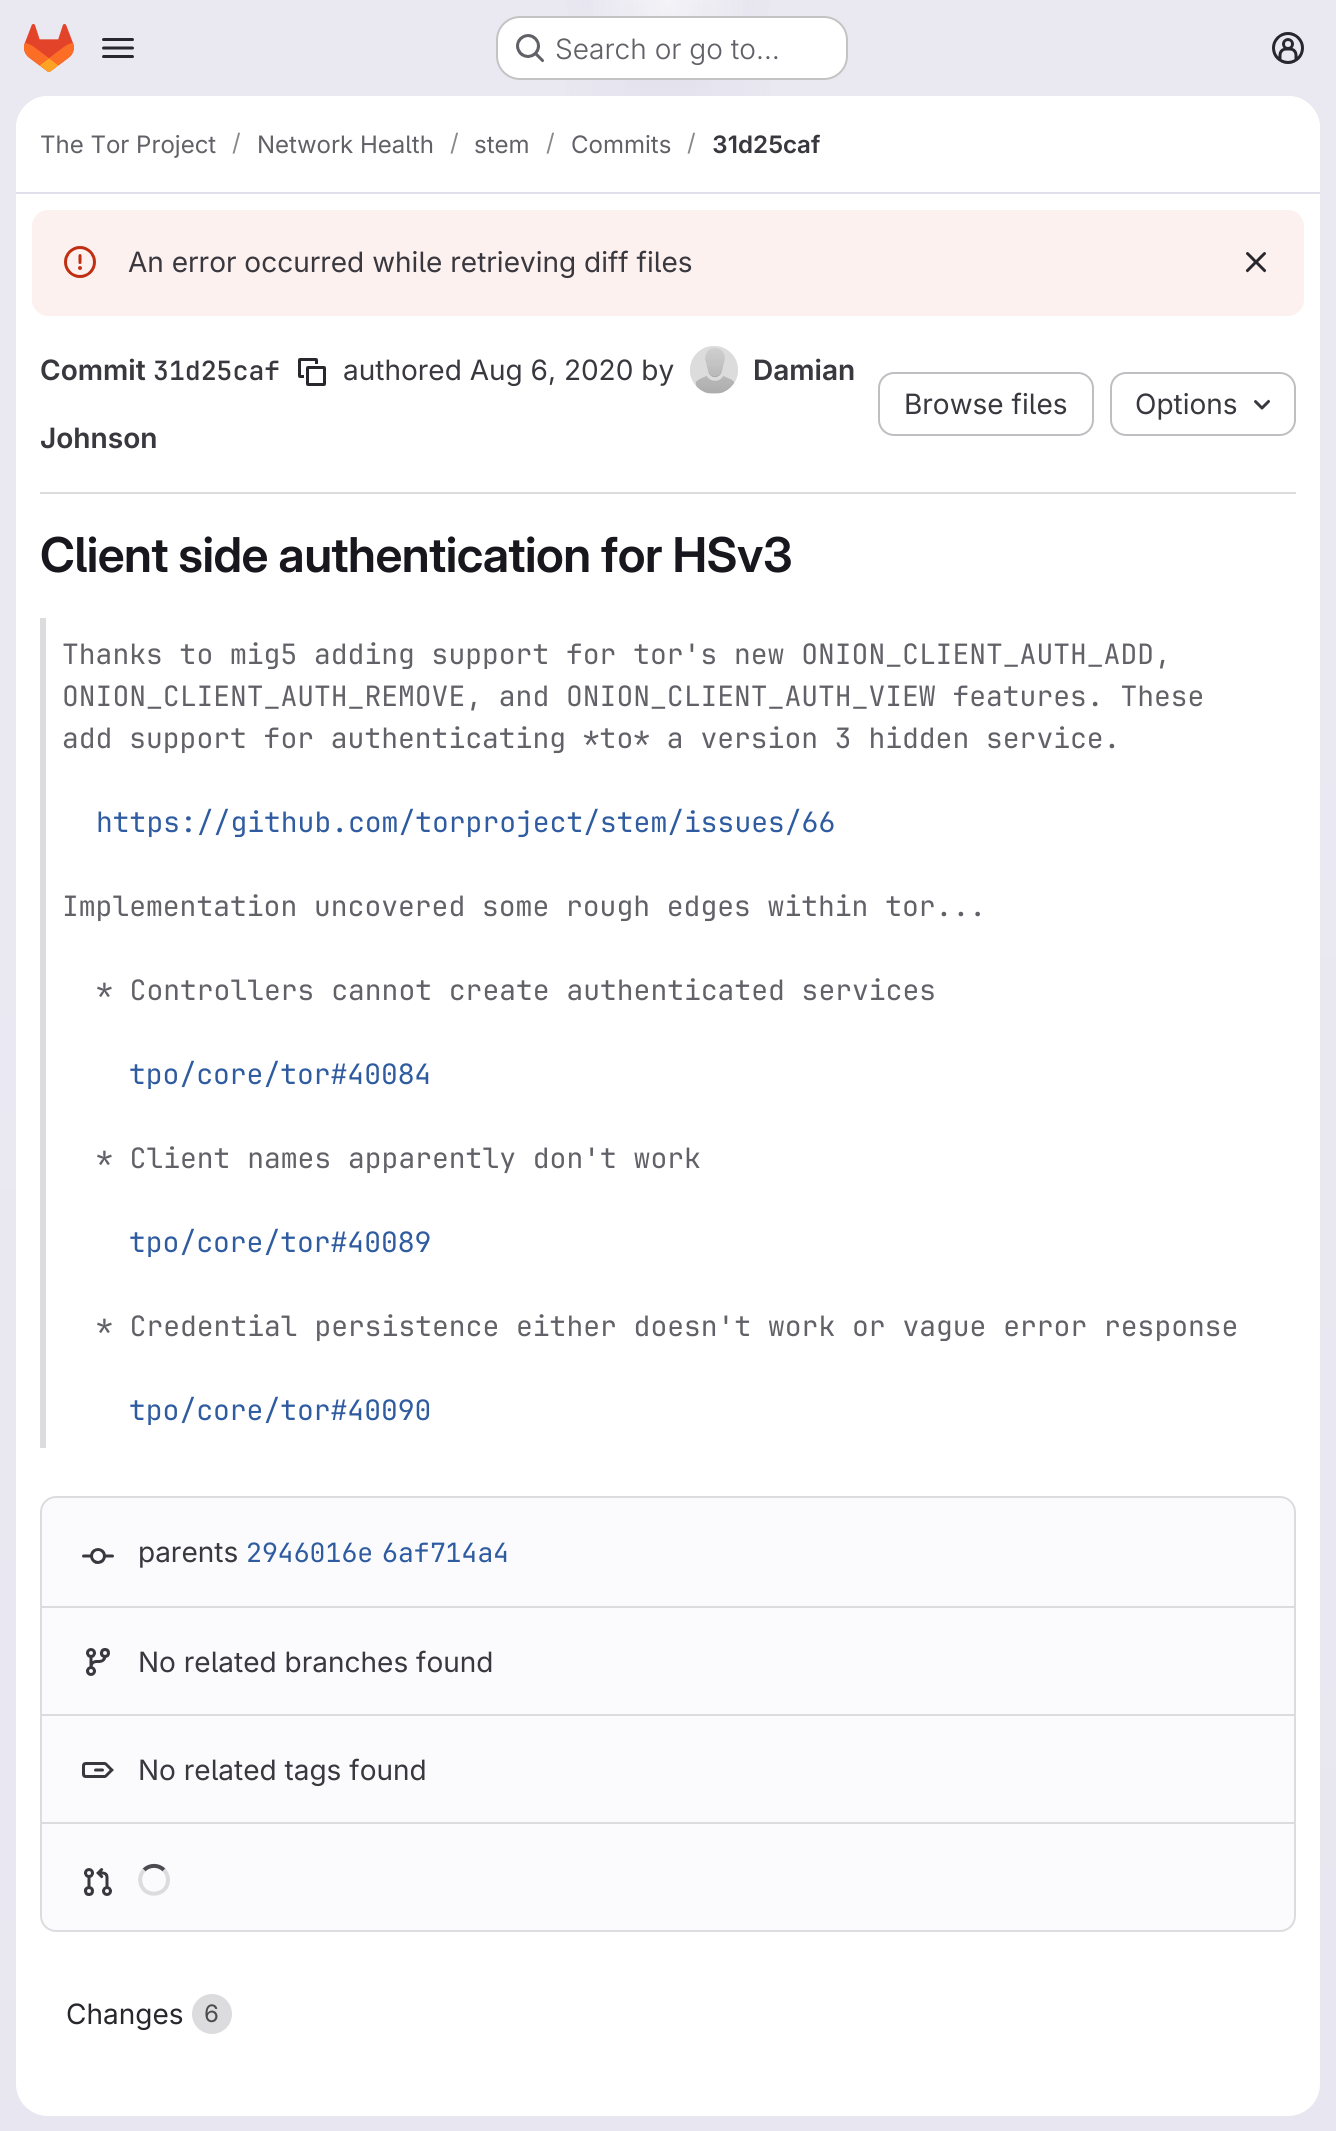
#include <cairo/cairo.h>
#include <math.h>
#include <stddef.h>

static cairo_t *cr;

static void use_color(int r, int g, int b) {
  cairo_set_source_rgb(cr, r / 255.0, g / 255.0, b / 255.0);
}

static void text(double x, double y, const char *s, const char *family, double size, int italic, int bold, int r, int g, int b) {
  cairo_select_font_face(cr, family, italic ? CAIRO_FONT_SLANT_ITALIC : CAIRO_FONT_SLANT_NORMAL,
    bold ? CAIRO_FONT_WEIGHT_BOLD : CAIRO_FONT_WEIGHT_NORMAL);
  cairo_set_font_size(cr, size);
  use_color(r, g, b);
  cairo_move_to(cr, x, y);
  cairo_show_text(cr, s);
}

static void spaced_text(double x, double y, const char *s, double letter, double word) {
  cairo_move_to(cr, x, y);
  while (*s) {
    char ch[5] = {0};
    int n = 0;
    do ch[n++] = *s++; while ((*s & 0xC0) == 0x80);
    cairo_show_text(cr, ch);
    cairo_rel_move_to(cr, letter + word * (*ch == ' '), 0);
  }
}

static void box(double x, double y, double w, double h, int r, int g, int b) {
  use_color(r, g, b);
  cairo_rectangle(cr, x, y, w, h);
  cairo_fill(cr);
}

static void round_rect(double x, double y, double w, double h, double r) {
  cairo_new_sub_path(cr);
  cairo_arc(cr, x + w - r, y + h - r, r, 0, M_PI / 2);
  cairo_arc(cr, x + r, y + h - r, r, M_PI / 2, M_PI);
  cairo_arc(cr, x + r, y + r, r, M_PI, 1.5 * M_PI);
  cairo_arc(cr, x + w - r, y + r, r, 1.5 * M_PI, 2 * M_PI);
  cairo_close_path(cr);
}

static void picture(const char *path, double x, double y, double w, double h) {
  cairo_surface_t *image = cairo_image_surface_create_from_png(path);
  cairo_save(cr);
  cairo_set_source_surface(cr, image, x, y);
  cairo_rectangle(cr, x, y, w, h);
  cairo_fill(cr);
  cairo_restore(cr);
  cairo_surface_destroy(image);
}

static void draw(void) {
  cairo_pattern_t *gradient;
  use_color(255, 255, 255);
  cairo_paint(cr);
  gradient = cairo_pattern_create_linear(870, 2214, 466, -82);
  cairo_pattern_add_color_stop_rgba(gradient, 0, 0.91, 0.902, 0.941, 1);
  cairo_pattern_add_color_stop_rgba(gradient, 0.7, 0.918, 0.914, 0.949, 1);
  cairo_set_source(cr, gradient);
  cairo_pattern_destroy(gradient);
  cairo_rectangle(cr, 0, 0, 1336, 2131);
  cairo_fill(cr);
  gradient = cairo_pattern_create_radial(0, 0, 0, 0, 0, 1);
  cairo_pattern_set_matrix(gradient, &(cairo_matrix_t){1.0 / 668, 0, 0, 1.0 / 2132, -1.0 * 668 / 668, -1.0 * 0 / 2132});
  cairo_pattern_add_color_stop_rgba(gradient, 0, 0.894, 0.886, 0.929, 1);
  cairo_pattern_add_color_stop_rgba(gradient, 0.21, 0.894, 0.886, 0.929, 0);
  cairo_set_source(cr, gradient);
  cairo_pattern_destroy(gradient);
  cairo_rectangle(cr, 567, 0, 202, 96);
  cairo_fill(cr);
  gradient = cairo_pattern_create_radial(0, 0, 0, 0, 0, 1);
  cairo_pattern_set_matrix(gradient, &(cairo_matrix_t){1.0 / 668, 0, 0, 1.0 / 2132, -1.0 * 668 / 668, -1.0 * 0 / 2132});
  cairo_pattern_add_color_stop_rgba(gradient, 0, 0.894, 0.886, 0.925, 1);
  cairo_pattern_add_color_stop_rgba(gradient, 0.15, 0.894, 0.886, 0.925, 0);
  cairo_set_source(cr, gradient);
  cairo_pattern_destroy(gradient);
  cairo_rectangle(cr, 627, 3, 82, 85);
  cairo_fill(cr);
  gradient = cairo_pattern_create_radial(668, 0, 0, 668, 0, 2234);
  cairo_pattern_add_color_stop_rgba(gradient, 0, 1, 1, 1, 0.6);
  cairo_pattern_add_color_stop_rgba(gradient, 0.04, 1, 1, 1, 0);
  cairo_set_source(cr, gradient);
  cairo_pattern_destroy(gradient);
  cairo_rectangle(cr, 593, 0, 150, 16);
  cairo_fill(cr);
  picture("img_01.png", 24, 24, 50, 48);
  picture("img_02.png", 102, 38, 32, 20);
  use_color(255, 255, 255);
  round_rect(496, 16, 352, 64, 24);
  cairo_fill(cr);
  round_rect(497, 17, 350, 62, 23);
  cairo_set_source_rgba(cr, 0.02, 0.02, 0.024, 0.24);
  cairo_stroke(cr);
  picture("img_03.png", 516, 34, 29, 29);
  picture("img_04.png", 1272, 32, 32, 32);
  use_color(255, 255, 255);
  round_rect(16, 96, 1304, 2020, 32);
  cairo_fill(cr);
  cairo_new_path(cr);
  cairo_move_to(cr, 48, 96);
  cairo_line_to(cr, 1288, 96);
  cairo_curve_to(cr, 1305.5, 96, 1320, 110.5, 1320, 128);
  cairo_line_to(cr, 1320, 194);
  cairo_line_to(cr, 16, 194);
  cairo_line_to(cr, 16, 128);
  cairo_curve_to(cr, 16, 110.5, 30.5, 96, 48, 96);
  cairo_close_path(cr);
  cairo_fill(cr);
  box(16, 192, 1304, 2, 225, 223, 236);
  use_color(252, 241, 239);
  round_rect(32, 210, 1272, 106, 16);
  cairo_fill(cr);
  picture("img_05.png", 64, 246, 32, 32);
  picture("img_06.png", 1245, 252, 22, 21);
  cairo_arc(cr, 714, 370, 23, 0, 2 * M_PI);
  use_color(232, 231, 233);
  cairo_stroke(cr);
  picture("img_07.png", 690, 346, 48, 48);
  picture("img_08.png", 298, 358, 28, 28);
  round_rect(879, 373, 214, 62, 15);
  use_color(191, 191, 195);
  cairo_stroke(cr);
  round_rect(1111, 373, 184, 62, 15);
  cairo_stroke(cr);
  picture("img_09.png", 1254, 399, 17, 11);
  box(40, 492, 1256, 2, 220, 220, 222);
  box(40, 618, 6, 830, 220, 220, 222);
  use_color(251, 250, 253);
  round_rect(41, 1497, 1254, 434, 15);
  cairo_fill_preserve(cr);
  use_color(220, 220, 222);
  cairo_stroke(cr);
  picture("img_10.png", 82, 1548, 32, 16);
  box(42, 1606, 1252, 2, 220, 220, 222);
  picture("img_11.png", 86, 1648, 24, 28);
  box(42, 1714, 1252, 2, 220, 220, 222);
  picture("img_12.png", 82, 1762, 32, 16);
  box(42, 1822, 1252, 2, 220, 220, 222);
  picture("img_13.png", 83, 1868, 29, 28);
  cairo_new_path(cr);
  cairo_move_to(cr, 144, 1870);
  cairo_curve_to(cr, 149.5, 1864.5, 158.5, 1864.5, 164, 1870);
  use_color(76, 75, 81);
  cairo_set_line_width(cr, 4);
  cairo_stroke(cr);
  cairo_new_path(cr);
  cairo_move_to(cr, 164, 1870);
  cairo_curve_to(cr, 166.5, 1872.5, 168, 1876.5, 168, 1880);
  cairo_curve_to(cr, 168, 1896.5, 143.5, 1899, 140.5, 1882.5);
  cairo_curve_to(cr, 139.5, 1878, 141, 1873.5, 144, 1870);
  use_color(220, 220, 222);
  cairo_stroke(cr);
  cairo_arc(cr, 212, 2014, 20, 0, 2 * M_PI);
  cairo_fill(cr);
  text(555, 59, "Search or go to…", "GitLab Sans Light", 28, 0, 0, 98, 97, 104);
  text(40, 153, "The Tor Project", "GitLab Sans", 24, 0, 0, 98, 97, 104);
  text(232, 151, "/", "GitLab Sans", 24, 0, 0, 137, 136, 141);
  text(257, 153, "Network Health", "GitLab Sans", 24, 0, 0, 98, 97, 104);
  text(450, 151, "/", "GitLab Sans", 24, 0, 0, 137, 136, 141);
  text(474, 153, "stem", "GitLab Sans", 24, 0, 0, 98, 97, 104);
  text(546, 151, "/", "GitLab Sans", 24, 0, 0, 137, 136, 141);
  text(571, 153, "Commits", "GitLab Sans", 24, 0, 0, 98, 97, 104);
  text(687, 151, "/", "GitLab Sans", 24, 0, 0, 137, 136, 141);
  text(712, 153, "31d25caf", "GitLab Sans SemiBold", 24, 0, 0, 58, 56, 63);
  text(128, 272, "An error occurred while retrieving diff files", "GitLab Sans", 28, 0, 0, 58, 56, 63);
  text(40, 380, "Commit", "GitLab Sans SemiBold", 28, 0, 0, 58, 56, 63);
  text(753, 380, "Damian", "GitLab Sans SemiBold", 28, 0, 0, 58, 56, 63);
  text(40, 448, "Johnson", "GitLab Sans SemiBold", 28, 0, 0, 58, 56, 63);
  text(153, 380, "31d25caf", "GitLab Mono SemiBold", 26.5, 0, 0, 58, 56, 63);
  text(343, 380, "authored Aug 6, 2020 by", "GitLab Sans", 28, 0, 0, 58, 56, 63);
  text(904, 414, "Browse files", "GitLab Sans", 28, 0, 0, 58, 56, 63);
  text(1135, 414, "Options", "GitLab Sans", 28, 0, 0, 58, 56, 63);
  cairo_select_font_face(cr, "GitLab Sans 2 SemiBold", CAIRO_FONT_SLANT_NORMAL, CAIRO_FONT_WEIGHT_NORMAL);
  cairo_set_font_size(cr, 48);
  use_color(24, 23, 29);
  spaced_text(40, 572, "Client side authentication for HSv3", -0.5, 0);
  text(62, 664, "Thanks to mig5 adding support for tor's new ONION_CLIENT_AUTH_ADD,", "GitLab Mono", 28, 0, 0, 98, 97, 104);
  text(62, 706, "ONION_CLIENT_AUTH_REMOVE, and ONION_CLIENT_AUTH_VIEW features. These", "GitLab Mono", 28, 0, 0, 98, 97, 104);
  text(62, 748, "add support for authenticating *to* a version 3 hidden service.", "GitLab Mono", 28, 0, 0, 98, 97, 104);
  text(96, 832, "https://github.com/torproject/stem/issues/66", "GitLab Mono", 28, 0, 0, 47, 92, 160);
  text(62, 916, "Implementation uncovered some rough edges within tor...", "GitLab Mono", 28, 0, 0, 98, 97, 104);
  text(96, 1000, "* Controllers cannot create authenticated services", "GitLab Mono", 28, 0, 0, 98, 97, 104);
  text(129, 1084, "tpo/core/tor#40084", "GitLab Mono", 28, 0, 0, 47, 92, 160);
  text(96, 1168, "* Client names apparently don't work", "GitLab Mono", 28, 0, 0, 98, 97, 104);
  text(129, 1252, "tpo/core/tor#40089", "GitLab Mono", 28, 0, 0, 47, 92, 160);
  text(96, 1336, "* Credential persistence either doesn't work or vague error response", "GitLab Mono", 28, 0, 0, 98, 97, 104);
  text(129, 1420, "tpo/core/tor#40090", "GitLab Mono", 28, 0, 0, 47, 92, 160);
  text(138, 1562, "parents", "GitLab Sans", 28, 0, 0, 58, 56, 63);
  text(246, 1562, "2946016e", "GitLab Mono", 26.5, 0, 0, 47, 92, 160);
  text(382, 1562, "6af714a4", "GitLab Mono", 26.5, 0, 0, 47, 92, 160);
  text(138, 1672, "No related branches found", "GitLab Sans", 28, 0, 0, 58, 56, 63);
  text(138, 1780, "No related tags found", "GitLab Sans", 28, 0, 0, 58, 56, 63);
  text(66, 2024, "Changes", "GitLab Sans", 28, 0, 0, 40, 39, 45);
  text(204, 2022, "6", "GitLab Sans", 24, 0, 0, 76, 75, 81);
}

int main(void) {
  cairo_surface_t *surface = cairo_image_surface_create(CAIRO_FORMAT_RGB24, 1336, 2131);
  cr = cairo_create(surface);
  cairo_font_options_t *options = cairo_font_options_create();
  cairo_font_options_set_hint_metrics(options, CAIRO_HINT_METRICS_OFF);
  cairo_font_options_set_hint_style(options, CAIRO_HINT_STYLE_NONE);
  cairo_set_font_options(cr, options);
  cairo_set_miter_limit(cr, 4);
  draw();
  cairo_surface_write_to_png(surface, "out.png");
  cairo_font_options_destroy(options);
  cairo_destroy(cr);
  cairo_surface_destroy(surface);
  return 0;
}
